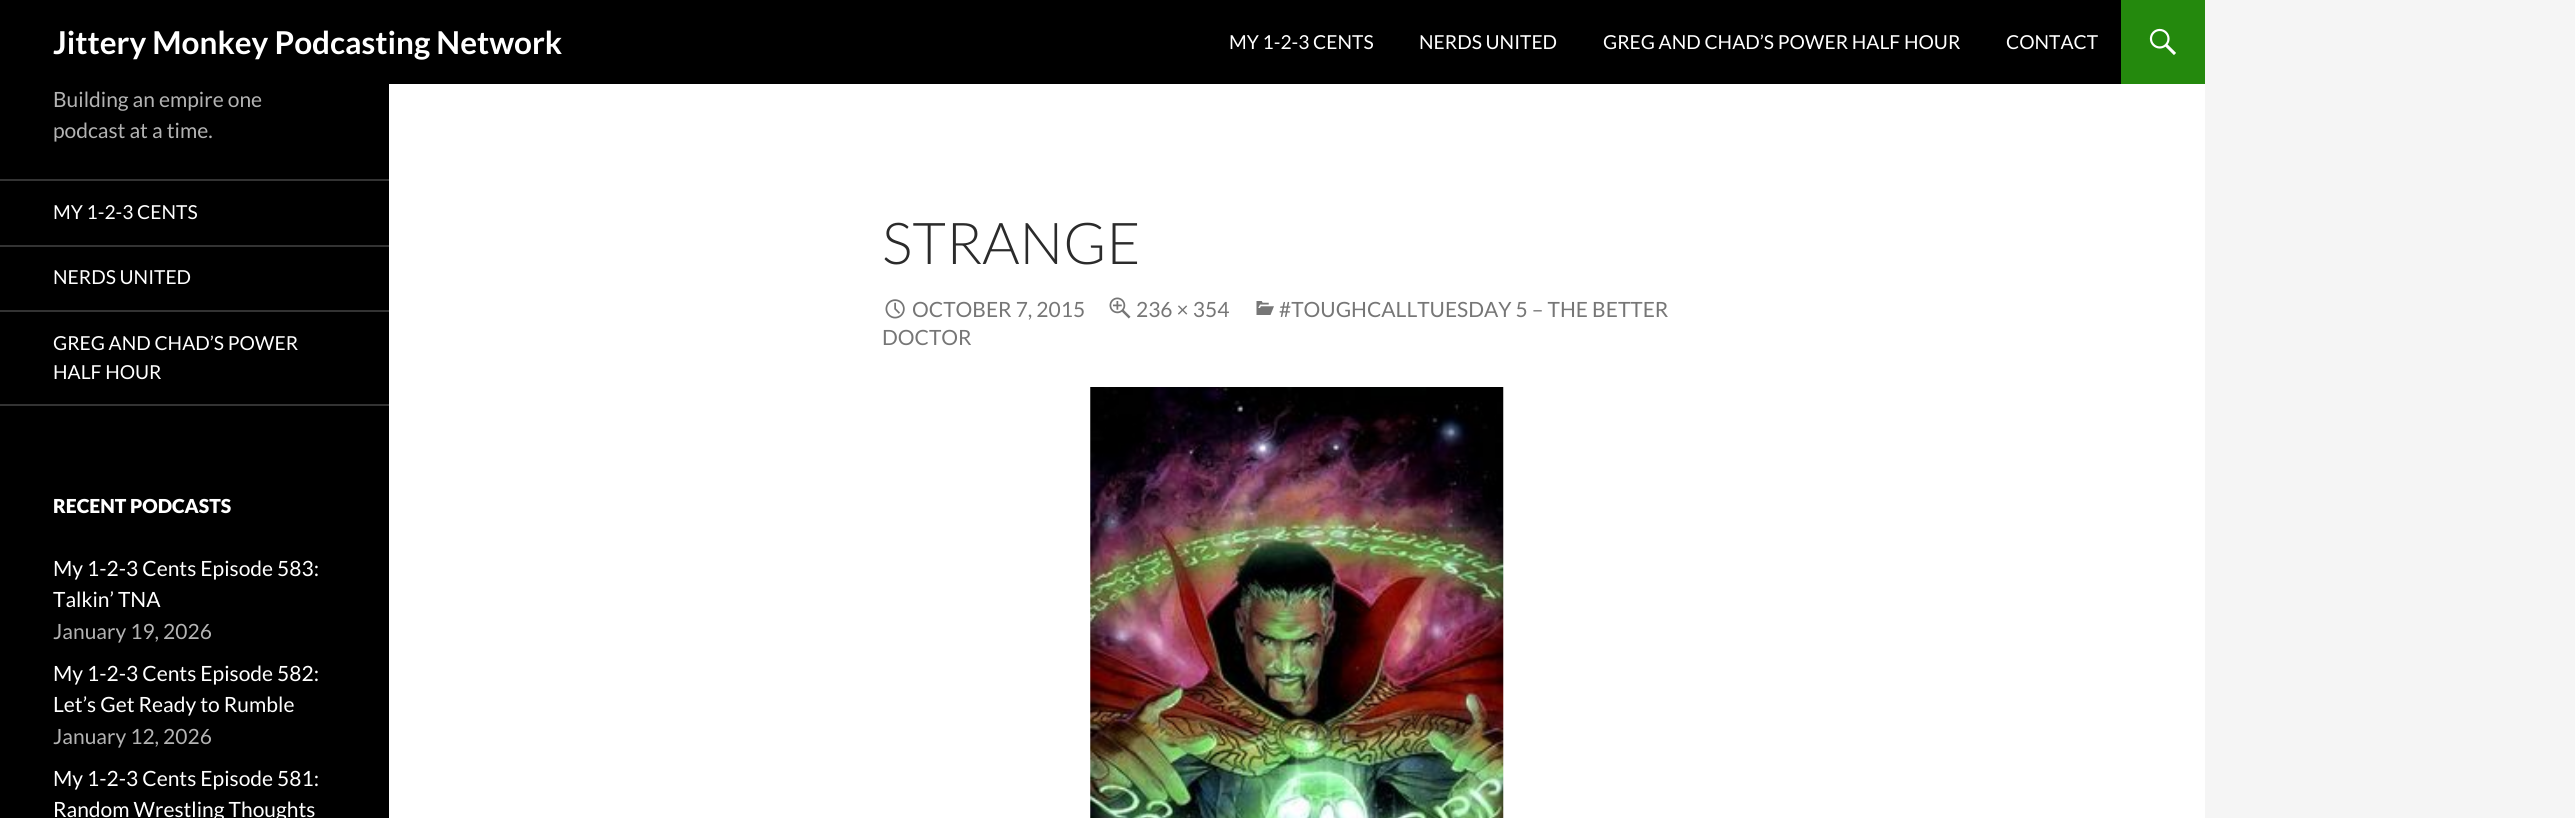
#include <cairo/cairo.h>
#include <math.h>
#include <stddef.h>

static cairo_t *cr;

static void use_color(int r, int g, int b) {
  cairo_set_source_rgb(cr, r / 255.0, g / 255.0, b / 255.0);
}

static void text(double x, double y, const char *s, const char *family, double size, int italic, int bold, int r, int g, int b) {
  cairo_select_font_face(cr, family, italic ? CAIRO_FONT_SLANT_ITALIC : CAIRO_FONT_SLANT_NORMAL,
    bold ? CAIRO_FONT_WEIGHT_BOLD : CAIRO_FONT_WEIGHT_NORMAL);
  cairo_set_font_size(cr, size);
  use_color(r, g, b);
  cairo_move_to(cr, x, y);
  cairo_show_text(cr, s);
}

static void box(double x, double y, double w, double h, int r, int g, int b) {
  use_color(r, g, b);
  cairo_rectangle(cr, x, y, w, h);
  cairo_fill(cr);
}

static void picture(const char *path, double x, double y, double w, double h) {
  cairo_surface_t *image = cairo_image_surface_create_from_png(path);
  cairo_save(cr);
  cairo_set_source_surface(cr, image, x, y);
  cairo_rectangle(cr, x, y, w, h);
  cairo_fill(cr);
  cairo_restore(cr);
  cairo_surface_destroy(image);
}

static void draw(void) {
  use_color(245, 245, 245);
  cairo_paint(cr);
  box(389, 84, 1816, 734, 255, 255, 255);
  box(0, 0, 2121, 84, 0, 0, 0);
  box(2121, 0, 84, 84, 36, 137, 13);
  picture("img_01.png", 2149, 28, 27, 27);
  box(0, 84, 389, 734, 0, 0, 0);
  box(0, 404, 389, 2, 51, 51, 51);
  box(0, 179, 389, 2, 51, 51, 51);
  box(0, 245, 389, 2, 51, 51, 51);
  box(0, 310, 389, 2, 51, 51, 51);
  picture("img_02.png", 1256, 301, 18, 14);
  picture("img_03.png", 885, 299, 20, 20);
  picture("img_04.png", 1109, 297, 22, 22);
  picture("img_05.png", 1090, 387, 414, 431);
  text(53, 54, "Jittery Monkey Podcasting Network", "Lato", 31.5, 0, 1, 255, 255, 255);
  text(1229, 49, "MY 1-2-3 CENTS", "Lato", 19.25, 0, 0, 255, 255, 255);
  text(1419, 49, "NERDS UNITED", "Lato", 19.25, 0, 0, 255, 255, 255);
  text(1603, 49, "GREG AND CHAD’S POWER HALF HOUR", "Lato", 19.25, 0, 0, 255, 255, 255);
  text(2006, 49, "CONTACT", "Lato", 19.25, 0, 0, 255, 255, 255);
  text(53, 107, "Building an empire one", "Lato", 21, 0, 0, 179, 179, 179);
  text(53, 138, "podcast at a time.", "Lato", 21, 0, 0, 179, 179, 179);
  text(53, 219, "MY 1-2-3 CENTS", "Lato", 19.25, 0, 0, 255, 255, 255);
  text(53, 284, "NERDS UNITED", "Lato", 19.25, 0, 0, 255, 255, 255);
  text(53, 350, "GREG AND CHAD’S POWER", "Lato", 19.25, 0, 0, 255, 255, 255);
  text(53, 379, "HALF HOUR", "Lato", 19.25, 0, 0, 255, 255, 255);
  text(53, 513, "RECENT PODCASTS", "Lato Black", 19.25, 0, 0, 255, 255, 255);
  text(53, 576, "My 1-2-3 Cents Episode 583:", "Lato", 21, 0, 0, 255, 255, 255);
  text(53, 607, "Talkin’ TNA", "Lato", 21, 0, 0, 255, 255, 255);
  text(53, 639, "January 19, 2026", "Lato", 21, 0, 0, 179, 179, 179);
  text(53, 681, "My 1-2-3 Cents Episode 582:", "Lato", 21, 0, 0, 255, 255, 255);
  text(53, 712, "Let’s Get Ready to Rumble", "Lato", 21, 0, 0, 255, 255, 255);
  text(53, 744, "January 12, 2026", "Lato", 21, 0, 0, 179, 179, 179);
  text(53, 786, "My 1-2-3 Cents Episode 581:", "Lato", 21, 0, 0, 255, 255, 255);
  text(53, 817, "Random Wrestling Thoughts", "Lato", 21, 0, 0, 255, 255, 255);
  text(882, 264, "STRANGE", "Lato Light", 57.75, 0, 0, 43, 43, 43);
  text(1279, 317, "#TOUGHCALLTUESDAY 5 – THE BETTER", "Lato", 21, 0, 0, 118, 118, 118);
  text(882, 345, "DOCTOR", "Lato", 21, 0, 0, 118, 118, 118);
  text(912, 317, "OCTOBER 7, 2015", "Lato", 21, 0, 0, 118, 118, 118);
  text(1136, 317, "236 × 354", "Lato", 21, 0, 0, 118, 118, 118);
}

int main(void) {
  cairo_surface_t *surface = cairo_image_surface_create(CAIRO_FORMAT_RGB24, 2575, 818);
  cr = cairo_create(surface);
  cairo_font_options_t *options = cairo_font_options_create();
  cairo_font_options_set_hint_metrics(options, CAIRO_HINT_METRICS_OFF);
  cairo_font_options_set_hint_style(options, CAIRO_HINT_STYLE_NONE);
  cairo_set_font_options(cr, options);
  cairo_set_miter_limit(cr, 4);
  draw();
  cairo_surface_write_to_png(surface, "out.png");
  cairo_font_options_destroy(options);
  cairo_destroy(cr);
  cairo_surface_destroy(surface);
  return 0;
}
